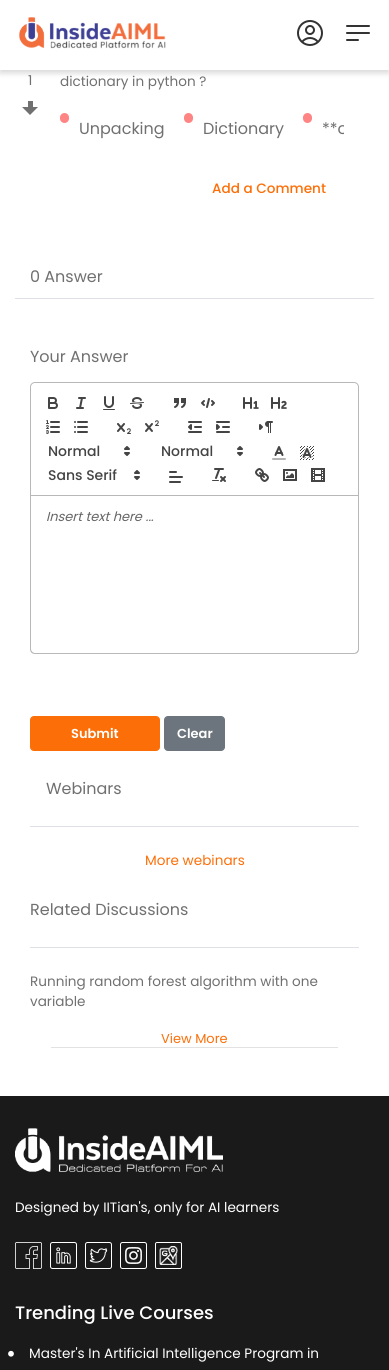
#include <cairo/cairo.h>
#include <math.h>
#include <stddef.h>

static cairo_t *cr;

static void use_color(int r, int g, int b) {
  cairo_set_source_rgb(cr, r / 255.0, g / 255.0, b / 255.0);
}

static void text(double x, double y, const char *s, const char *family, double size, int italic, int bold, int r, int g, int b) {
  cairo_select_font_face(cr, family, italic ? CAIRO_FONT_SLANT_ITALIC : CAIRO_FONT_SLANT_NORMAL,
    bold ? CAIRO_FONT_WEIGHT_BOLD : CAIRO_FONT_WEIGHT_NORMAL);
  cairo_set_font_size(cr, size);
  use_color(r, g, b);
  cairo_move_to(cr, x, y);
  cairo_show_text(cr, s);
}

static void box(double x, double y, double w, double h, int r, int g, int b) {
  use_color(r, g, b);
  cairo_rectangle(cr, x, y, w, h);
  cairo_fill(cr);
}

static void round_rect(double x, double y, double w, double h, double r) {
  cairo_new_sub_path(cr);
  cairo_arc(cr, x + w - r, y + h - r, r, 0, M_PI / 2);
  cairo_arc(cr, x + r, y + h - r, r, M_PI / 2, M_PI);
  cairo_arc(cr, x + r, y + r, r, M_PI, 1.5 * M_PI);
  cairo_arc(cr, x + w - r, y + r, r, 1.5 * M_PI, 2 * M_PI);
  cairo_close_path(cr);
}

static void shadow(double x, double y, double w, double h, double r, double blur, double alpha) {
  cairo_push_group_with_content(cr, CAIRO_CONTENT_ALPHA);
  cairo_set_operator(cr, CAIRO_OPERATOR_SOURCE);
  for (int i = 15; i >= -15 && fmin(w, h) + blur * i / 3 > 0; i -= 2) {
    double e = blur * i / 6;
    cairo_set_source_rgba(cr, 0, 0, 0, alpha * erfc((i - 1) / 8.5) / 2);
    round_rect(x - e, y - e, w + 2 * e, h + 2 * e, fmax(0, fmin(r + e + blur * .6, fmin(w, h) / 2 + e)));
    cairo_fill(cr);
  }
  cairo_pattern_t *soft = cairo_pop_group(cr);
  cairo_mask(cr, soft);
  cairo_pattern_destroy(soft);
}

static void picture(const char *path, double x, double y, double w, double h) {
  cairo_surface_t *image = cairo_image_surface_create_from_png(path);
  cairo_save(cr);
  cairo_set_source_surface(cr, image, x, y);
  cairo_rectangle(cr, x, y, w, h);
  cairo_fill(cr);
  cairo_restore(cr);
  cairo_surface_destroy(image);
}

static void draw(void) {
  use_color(255, 255, 255);
  cairo_paint(cr);
  use_color(0, 0, 0);
  shadow(0, 3, 389, 70, 0, 3, 0.16);
  box(0, 0, 389, 70, 255, 255, 255);
  picture("img_01.png", 19, 17, 147, 32);
  picture("img_02.png", 297, 20, 26, 26);
  cairo_new_path(cr);
  cairo_move_to(cr, 347, 26);
  cairo_line_to(cr, 369, 26);
  cairo_move_to(cr, 347, 33);
  cairo_line_to(cr, 369, 33);
  cairo_move_to(cr, 347, 40);
  cairo_line_to(cr, 358, 40);
  use_color(51, 51, 51);
  cairo_set_line_cap(cr, CAIRO_LINE_CAP_ROUND);
  cairo_set_line_join(cr, CAIRO_LINE_JOIN_ROUND);
  cairo_stroke(cr);
  use_color(112, 112, 112);
  cairo_new_path(cr);
  cairo_move_to(cr, 22, 107);
  cairo_line_to(cr, 38, 107);
  cairo_line_to(cr, 30, 115);
  cairo_close_path(cr);
  cairo_fill(cr);
  box(28, 101, 5, 6, 112, 112, 112);
  use_color(255, 132, 132);
  round_rect(60, 113, 9, 10, 4.5);
  cairo_fill(cr);
  round_rect(184, 113, 9, 10, 4.5);
  cairo_fill(cr);
  round_rect(303, 113, 9, 10, 4.5);
  cairo_fill(cr);
  box(15, 298, 359, 1, 222, 226, 230);
  cairo_new_path(cr);
  cairo_move_to(cr, 35, 382.5);
  cairo_line_to(cr, 354, 382.5);
  cairo_curve_to(cr, 356.5, 382.5, 358.5, 384.5, 358.5, 387);
  cairo_line_to(cr, 358.5, 495.5);
  cairo_line_to(cr, 30.5, 495.5);
  cairo_line_to(cr, 30.5, 387);
  cairo_curve_to(cr, 30.5, 384.5, 32.5, 382.5, 35, 382.5);
  cairo_close_path(cr);
  use_color(184, 184, 184);
  cairo_set_line_width(cr, 1);
  cairo_set_line_cap(cr, CAIRO_LINE_CAP_BUTT);
  cairo_set_line_join(cr, CAIRO_LINE_JOIN_MITER);
  cairo_stroke(cr);
  picture("img_03.png", 48, 397, 10, 12);
  picture("img_04.png", 76, 397, 10, 12);
  picture("img_05.png", 103, 396, 12, 14);
  picture("img_06.png", 130, 397, 14, 12);
  picture("img_07.png", 174, 398, 12, 10);
  picture("img_08.png", 201, 398, 14, 10);
  picture("img_09.png", 243, 397, 16, 12);
  picture("img_10.png", 271, 397, 16, 12);
  picture("img_11.png", 46, 420, 14, 14);
  picture("img_12.png", 74, 421, 14, 12);
  picture("img_13.png", 117, 423, 14, 11);
  picture("img_14.png", 145, 420, 14, 12);
  picture("img_15.png", 188, 421, 14, 12);
  picture("img_16.png", 216, 421, 14, 12);
  picture("img_17.png", 259, 421, 14, 12);
  picture("img_18.png", 124, 446, 6, 10);
  picture("img_18.png", 237, 446, 6, 10);
  picture("img_19.png", 272, 446, 14, 14);
  picture("img_20.png", 300, 446, 14, 14);
  picture("img_18.png", 134, 470, 6, 10);
  picture("img_21.png", 169, 471, 14, 12);
  picture("img_22.png", 212, 468, 14, 14);
  picture("img_23.png", 255, 468, 14, 14);
  picture("img_24.png", 283, 469, 14, 12);
  picture("img_25.png", 311, 468, 14, 14);
  cairo_set_fill_rule(cr, CAIRO_FILL_RULE_EVEN_ODD);
  cairo_new_path(cr);
  cairo_move_to(cr, 30, 496);
  cairo_line_to(cr, 359, 496);
  cairo_line_to(cr, 359, 649);
  cairo_curve_to(cr, 359, 652, 357, 654, 354, 654);
  cairo_line_to(cr, 35, 654);
  cairo_curve_to(cr, 32, 654, 30, 652, 30, 649);
  cairo_close_path(cr);
  cairo_move_to(cr, 31, 496);
  cairo_line_to(cr, 358, 496);
  cairo_line_to(cr, 358, 649);
  cairo_curve_to(cr, 358, 651, 356, 653, 354, 653);
  cairo_line_to(cr, 35, 653);
  cairo_curve_to(cr, 33, 653, 31, 651, 31, 649);
  cairo_close_path(cr);
  cairo_fill(cr);
  use_color(252, 111, 8);
  round_rect(30.5, 716.5, 129, 34, 3.5);
  cairo_fill_preserve(cr);
  cairo_stroke(cr);
  use_color(108, 117, 125);
  round_rect(164.5, 716.5, 60, 34, 3.5);
  cairo_fill_preserve(cr);
  cairo_stroke(cr);
  box(30, 826, 329, 1, 222, 226, 230);
  box(51, 1047, 287, 1, 226, 226, 226);
  box(30, 947, 329, 1, 222, 226, 230);
  box(0, 1096, 389, 274, 26, 26, 26);
  picture("img_26.png", 15, 1128, 208, 44);
  picture("img_27.png", 15, 1242, 27, 27);
  picture("img_28.png", 50, 1242, 27, 27);
  picture("img_29.png", 85, 1242, 27, 27);
  picture("img_30.png", 120, 1242, 27, 27);
  round_rect(155.5, 1242.5, 26, 26, 1.5);
  use_color(255, 255, 255);
  cairo_stroke(cr);
  picture("img_31.png", 159, 1246, 19, 19);
  picture("img_32.png", 8, 1350, 6, 7);
  text(28, 85, "1", "Poppins", 13.6, 0, 0, 112, 112, 112);
  text(60, 86, "dictionary in python ?", "Poppins", 13.6, 0, 0, 112, 112, 112);
  text(79, 134, "Unpacking", "Poppins", 16, 0, 0, 112, 112, 112);
  text(203, 134, "Dictionary", "Poppins", 16, 0, 0, 112, 112, 112);
  cairo_save(cr);
  cairo_set_fill_rule(cr, CAIRO_FILL_RULE_WINDING);
  cairo_rectangle(cr, 45, 24, 299, 219);
  cairo_clip(cr);
  text(322, 134, "**o", "Poppins", 16, 0, 0, 112, 112, 112);
  cairo_restore(cr);
  text(212, 193, "Add a Comment", "Poppins Medium", 13.6, 0, 0, 252, 111, 8);
  text(30, 282, "0 Answer", "Poppins", 16, 0, 0, 112, 112, 112);
  text(30, 362, "Your Answer", "Poppins", 16, 0, 0, 112, 112, 112);
  text(48, 456, "Normal", "Poppins Medium", 14, 0, 0, 68, 68, 68);
  text(161, 456, "Normal", "Poppins Medium", 14, 0, 0, 68, 68, 68);
  text(48, 480, "Sans Serif", "Poppins Medium", 14, 0, 0, 68, 68, 68);
  text(46, 521, "Insert text here ...", "Poppins", 13, 1, 0, 102, 102, 102);
  text(71, 738, "Submit", "Poppins SemiBold", 13, 0, 0, 255, 255, 255);
  text(177, 738, "Clear", "Poppins SemiBold", 13, 0, 0, 255, 255, 255);
  text(46, 794, "Webinars", "Poppins", 16, 0, 0, 112, 112, 112);
  text(145, 865, "More webinars", "Poppins", 13.6, 0, 0, 252, 111, 8);
  text(30, 915, "Related Discussions", "Poppins", 16, 0, 0, 112, 112, 112);
  text(30, 986, "Running random forest algorithm with one", "Poppins", 13.6, 0, 0, 112, 112, 112);
  text(30, 1006, "variable", "Poppins", 13.6, 0, 0, 112, 112, 112);
  text(161, 1043, "View More", "Poppins", 13, 0, 0, 252, 111, 8);
  text(15, 1212, "Designed by IITian's, only for AI learners", "Poppins", 13.6, 0, 0, 255, 255, 255);
  text(15, 1319, "Trending Live Courses", "Poppins Medium", 18, 0, 0, 255, 255, 255);
  text(29, 1358, "Master's In Artificial Intelligence Program in", "Poppins", 13.6, 0, 0, 255, 255, 255);
}

int main(void) {
  cairo_surface_t *surface = cairo_image_surface_create(CAIRO_FORMAT_RGB24, 389, 1370);
  cr = cairo_create(surface);
  cairo_font_options_t *options = cairo_font_options_create();
  cairo_font_options_set_hint_metrics(options, CAIRO_HINT_METRICS_OFF);
  cairo_font_options_set_hint_style(options, CAIRO_HINT_STYLE_NONE);
  cairo_set_font_options(cr, options);
  cairo_set_miter_limit(cr, 4);
  draw();
  cairo_surface_write_to_png(surface, "out.png");
  cairo_font_options_destroy(options);
  cairo_destroy(cr);
  cairo_surface_destroy(surface);
  return 0;
}
